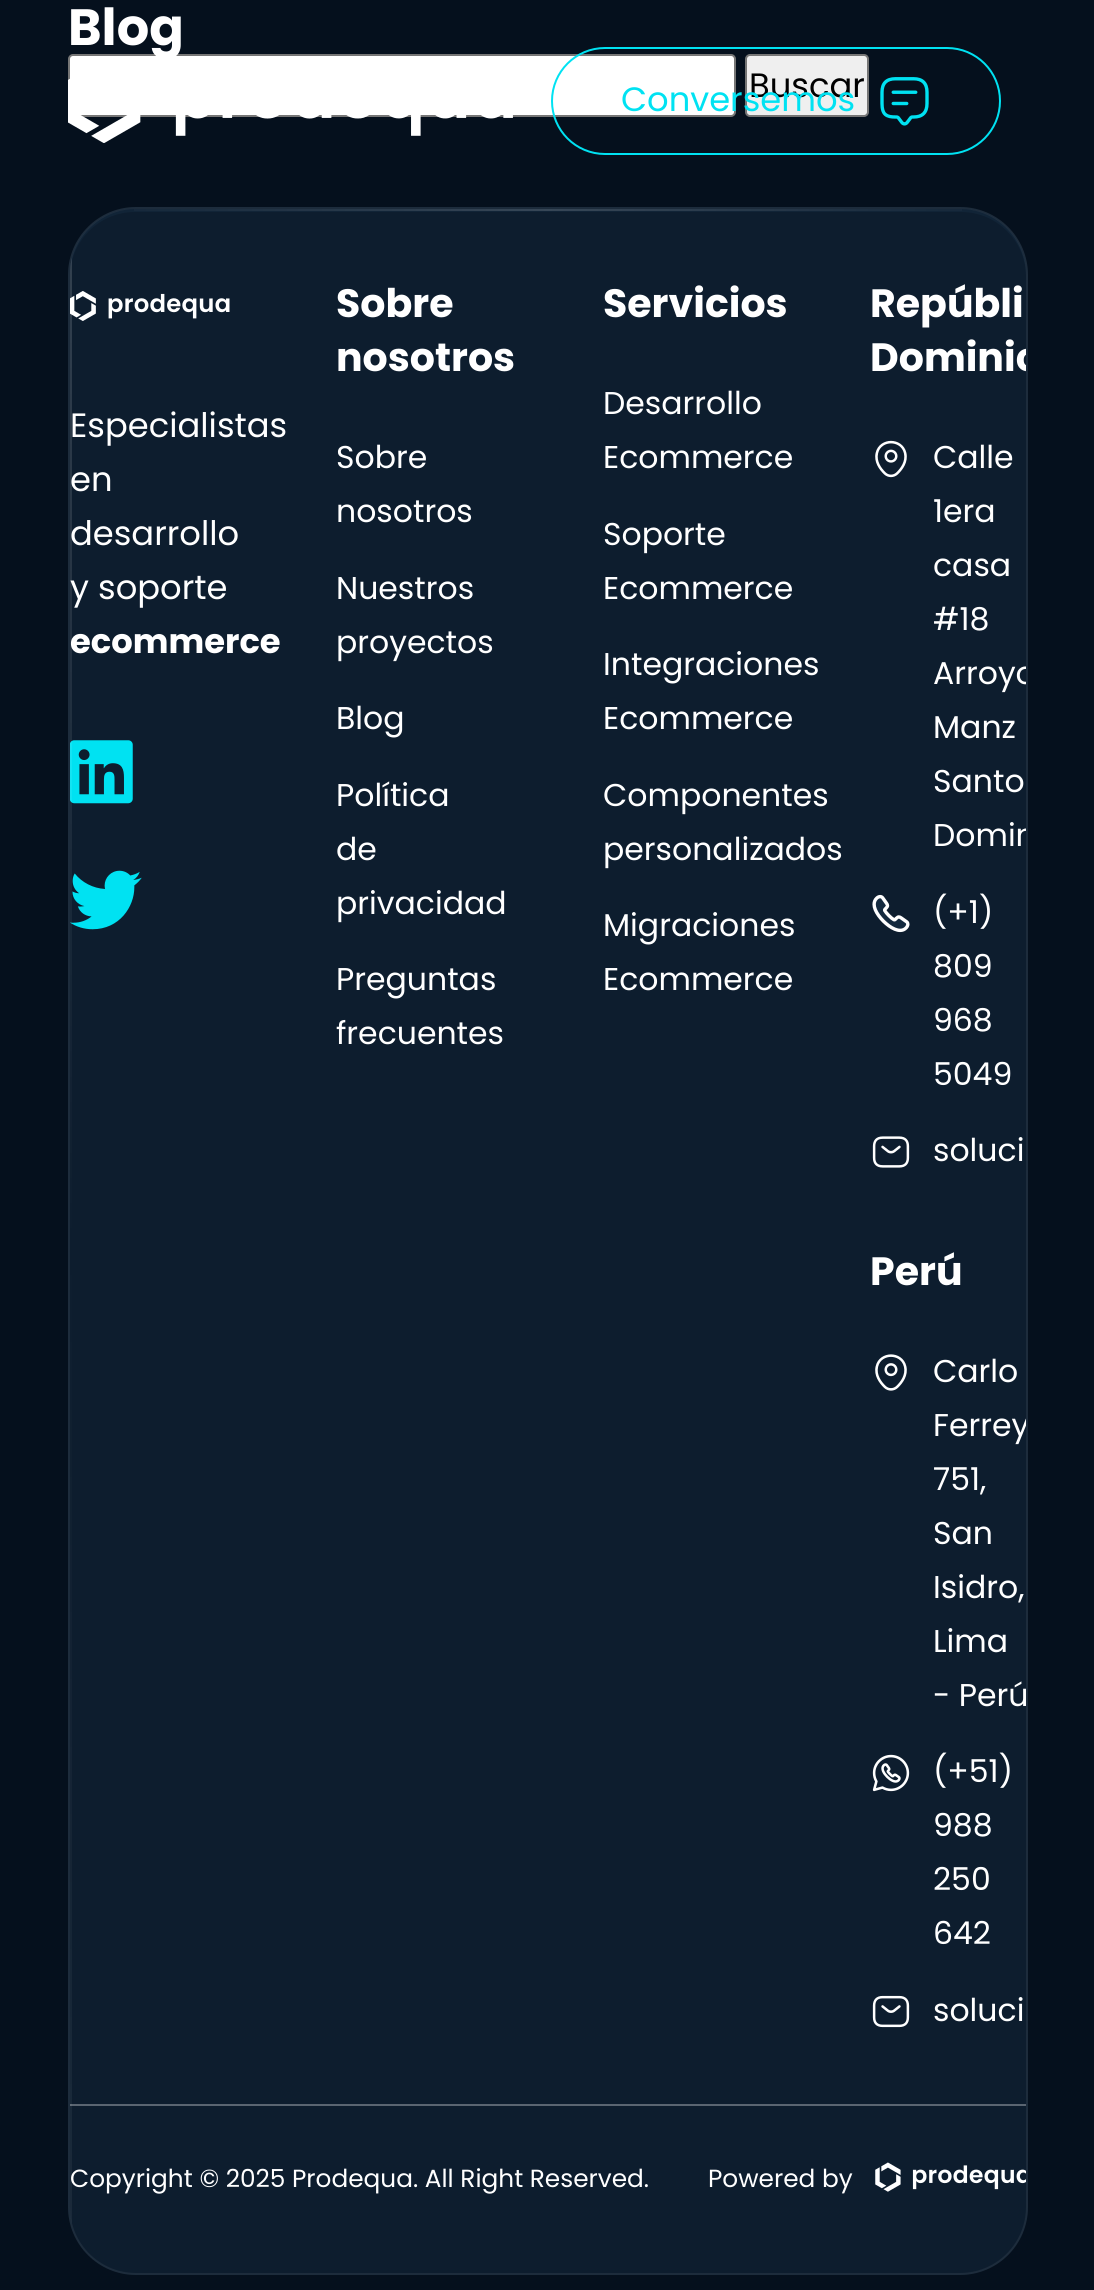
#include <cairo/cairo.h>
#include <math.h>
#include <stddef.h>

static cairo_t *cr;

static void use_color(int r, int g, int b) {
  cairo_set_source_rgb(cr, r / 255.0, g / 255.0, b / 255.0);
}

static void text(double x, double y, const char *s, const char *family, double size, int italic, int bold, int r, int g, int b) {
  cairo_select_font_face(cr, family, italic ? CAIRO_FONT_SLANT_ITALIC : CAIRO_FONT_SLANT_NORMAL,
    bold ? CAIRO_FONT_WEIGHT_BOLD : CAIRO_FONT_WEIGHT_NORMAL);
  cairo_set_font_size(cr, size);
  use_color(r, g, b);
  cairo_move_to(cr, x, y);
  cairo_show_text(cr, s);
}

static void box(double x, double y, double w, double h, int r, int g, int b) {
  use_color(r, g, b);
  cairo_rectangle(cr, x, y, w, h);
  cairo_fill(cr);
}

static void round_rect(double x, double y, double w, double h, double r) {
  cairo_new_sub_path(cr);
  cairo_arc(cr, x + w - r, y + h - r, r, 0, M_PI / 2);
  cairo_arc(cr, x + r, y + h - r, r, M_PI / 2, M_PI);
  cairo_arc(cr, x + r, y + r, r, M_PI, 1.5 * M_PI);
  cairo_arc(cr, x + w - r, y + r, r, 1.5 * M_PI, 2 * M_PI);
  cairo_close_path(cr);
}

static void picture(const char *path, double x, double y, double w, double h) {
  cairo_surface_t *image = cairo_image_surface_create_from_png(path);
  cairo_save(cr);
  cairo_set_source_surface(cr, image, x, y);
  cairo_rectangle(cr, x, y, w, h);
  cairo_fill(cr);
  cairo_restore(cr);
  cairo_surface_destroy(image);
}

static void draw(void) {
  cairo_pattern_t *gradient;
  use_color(5, 16, 29);
  cairo_paint(cr);
  use_color(255, 255, 255);
  round_rect(69, 55, 666, 61, 4);
  cairo_fill_preserve(cr);
  use_color(118, 118, 118);
  cairo_stroke(cr);
  use_color(239, 239, 239);
  round_rect(746, 55, 122, 61, 4);
  cairo_fill_preserve(cr);
  use_color(118, 118, 118);
  cairo_stroke(cr);
  picture("img_01.png", 68, 78, 445, 65);
  round_rect(552, 48, 448, 106, 53);
  use_color(0, 226, 242);
  cairo_stroke(cr);
  picture("img_02.png", 880, 77, 49, 49);
  use_color(13, 29, 46);
  round_rect(68, 207, 960, 2068, 68);
  cairo_fill(cr);
  use_color(17, 36, 55);
  cairo_new_path(cr);
  cairo_move_to(cr, 135, 212);
  cairo_line_to(cr, 961, 212);
  cairo_curve_to(cr, 997, 212, 1026, 241, 1026, 277);
  cairo_line_to(cr, 1026, 274);
  cairo_curve_to(cr, 1026, 238, 997, 209, 961, 209);
  cairo_line_to(cr, 135, 209);
  cairo_curve_to(cr, 99, 209, 70, 238, 70, 274);
  cairo_line_to(cr, 70, 277);
  cairo_curve_to(cr, 70, 241, 99, 212, 135, 212);
  cairo_close_path(cr);
  cairo_fill(cr);
  round_rect(69, 208, 958, 2066, 67);
  cairo_set_source_rgba(cr, 1, 1, 1, 0.07);
  cairo_stroke(cr);
  gradient = cairo_pattern_create_linear(70, 210, 1026, 210);
  cairo_pattern_add_color_stop_rgba(gradient, 0, 1, 1, 1, 0);
  cairo_pattern_add_color_stop_rgba(gradient, 0.5, 1, 1, 1, 0.16);
  cairo_pattern_add_color_stop_rgba(gradient, 1, 1, 1, 1, 0);
  cairo_set_source(cr, gradient);
  cairo_pattern_destroy(gradient);
  cairo_rectangle(cr, 134, 209, 828, 2);
  cairo_fill(cr);
  picture("img_03.png", 70, 291, 160, 30);
  picture("img_04.png", 70, 740, 63, 64);
  picture("img_05.png", 70, 870, 72, 60);
  box(70, 2104, 956, 2, 90, 101, 113);
  cairo_save(cr);
  round_rect(70, 209, 956, 2064, 65);
  cairo_clip(cr);
  gradient = cairo_pattern_create_linear(71, 209, 71, 2273);
  cairo_pattern_add_color_stop_rgba(gradient, 0, 1, 1, 1, 0.16);
  cairo_pattern_add_color_stop_rgba(gradient, 0.5, 1, 1, 1, 0);
  cairo_pattern_add_color_stop_rgba(gradient, 1, 1, 1, 1, 0.06);
  cairo_set_source(cr, gradient);
  cairo_pattern_destroy(gradient);
  cairo_rectangle(cr, 70, 258, 2, 1965);
  cairo_fill(cr);
  cairo_restore(cr);
  picture("img_06.png", 875, 440, 32, 38);
  picture("img_07.png", 872, 894, 38, 39);
  picture("img_08.png", 872, 1136, 38, 32);
  picture("img_09.png", 875, 1354, 32, 37);
  picture("img_10.png", 872, 1754, 38, 38);
  picture("img_11.png", 872, 1995, 38, 33);
  picture("img_12.png", 875, 2162, 151, 30);
  text(68, 45, "Blog", "Poppins", 51, 0, 1, 255, 255, 255);
  text(749, 97, "Buscar", "Poppins", 33.75, 0, 0, 0, 0, 0);
  text(621, 111, "Conversemos", "Poppins", 33.75, 0, 0, 0, 226, 242);
  text(70, 437, "Especialistas", "Poppins", 33.75, 0, 0, 255, 255, 255);
  text(70, 491, "en", "Poppins", 33.75, 0, 0, 255, 255, 255);
  text(70, 545, "desarrollo", "Poppins", 33.75, 0, 0, 255, 255, 255);
  text(70, 599, "y soporte", "Poppins", 33.75, 0, 0, 255, 255, 255);
  text(70, 653, "ecommerce", "Poppins", 33.75, 0, 1, 255, 255, 255);
  text(336, 317, "Sobre", "Poppins", 39.5, 0, 1, 255, 255, 255);
  text(336, 371, "nosotros", "Poppins", 39.5, 0, 1, 255, 255, 255);
  text(336, 468, "Sobre", "Poppins", 31.5, 0, 0, 255, 255, 255);
  text(336, 522, "nosotros", "Poppins", 31.5, 0, 0, 255, 255, 255);
  text(336, 599, "Nuestros", "Poppins", 31.5, 0, 0, 255, 255, 255);
  text(336, 653, "proyectos", "Poppins", 31.5, 0, 0, 255, 255, 255);
  text(336, 729, "Blog", "Poppins", 31.5, 0, 0, 255, 255, 255);
  text(336, 806, "Política", "Poppins", 31.5, 0, 0, 255, 255, 255);
  text(336, 860, "de", "Poppins", 31.5, 0, 0, 255, 255, 255);
  text(336, 914, "privacidad", "Poppins", 31.5, 0, 0, 255, 255, 255);
  text(336, 990, "Preguntas", "Poppins", 31.5, 0, 0, 255, 255, 255);
  text(336, 1044, "frecuentes", "Poppins", 31.5, 0, 0, 255, 255, 255);
  text(603, 317, "Servicios", "Poppins", 39.5, 0, 1, 255, 255, 255);
  text(603, 414, "Desarrollo", "Poppins", 31.5, 0, 0, 255, 255, 255);
  text(603, 468, "Ecommerce", "Poppins", 31.5, 0, 0, 255, 255, 255);
  text(603, 545, "Soporte", "Poppins", 31.5, 0, 0, 255, 255, 255);
  text(603, 599, "Ecommerce", "Poppins", 31.5, 0, 0, 255, 255, 255);
  text(603, 675, "Integraciones", "Poppins", 31.5, 0, 0, 255, 255, 255);
  text(603, 729, "Ecommerce", "Poppins", 31.5, 0, 0, 255, 255, 255);
  text(603, 806, "Componentes", "Poppins", 31.5, 0, 0, 255, 255, 255);
  text(603, 860, "personalizados", "Poppins", 31.5, 0, 0, 255, 255, 255);
  text(603, 936, "Migraciones", "Poppins", 31.5, 0, 0, 255, 255, 255);
  text(603, 990, "Ecommerce", "Poppins", 31.5, 0, 0, 255, 255, 255);
  text(870, 317, "Repúbli", "Poppins", 39.5, 0, 1, 255, 255, 255);
  cairo_save(cr);
  round_rect(70, 209, 956, 2064, 65);
  cairo_clip(cr);
  text(870, 371, "Dominic", "Poppins", 39.5, 0, 1, 255, 255, 255);
  cairo_restore(cr);
  text(933, 468, "Calle", "Poppins", 31.5, 0, 0, 255, 255, 255);
  text(933, 522, "1era", "Poppins", 31.5, 0, 0, 255, 255, 255);
  text(933, 576, "casa", "Poppins", 31.5, 0, 0, 255, 255, 255);
  text(933, 630, "#18", "Poppins", 31.5, 0, 0, 255, 255, 255);
  cairo_save(cr);
  round_rect(70, 209, 956, 2064, 65);
  cairo_clip(cr);
  text(933, 684, "Arroyo", "Poppins", 31.5, 0, 0, 255, 255, 255);
  cairo_restore(cr);
  text(933, 738, "Manz", "Poppins", 31.5, 0, 0, 255, 255, 255);
  text(933, 792, "Santo", "Poppins", 31.5, 0, 0, 255, 255, 255);
  cairo_save(cr);
  round_rect(70, 209, 956, 2064, 65);
  cairo_clip(cr);
  text(933, 846, "Domin", "Poppins", 31.5, 0, 0, 255, 255, 255);
  cairo_restore(cr);
  text(933, 923, "(+1)", "Poppins", 31.5, 0, 0, 255, 255, 255);
  text(933, 977, "809", "Poppins", 31.5, 0, 0, 255, 255, 255);
  text(933, 1031, "968", "Poppins", 31.5, 0, 0, 255, 255, 255);
  text(933, 1085, "5049", "Poppins", 31.5, 0, 0, 255, 255, 255);
  text(933, 1161, "soluci", "Poppins", 31.5, 0, 0, 255, 255, 255);
  text(870, 1285, "Perú", "Poppins", 39.5, 0, 1, 255, 255, 255);
  text(933, 1382, "Carlo", "Poppins", 31.5, 0, 0, 255, 255, 255);
  cairo_save(cr);
  round_rect(70, 209, 956, 2064, 65);
  cairo_clip(cr);
  text(933, 1436, "Ferrey", "Poppins", 31.5, 0, 0, 255, 255, 255);
  cairo_restore(cr);
  text(933, 1490, "751,", "Poppins", 31.5, 0, 0, 255, 255, 255);
  text(933, 1544, "San", "Poppins", 31.5, 0, 0, 255, 255, 255);
  text(933, 1598, "Isidro,", "Poppins", 31.5, 0, 0, 255, 255, 255);
  text(933, 1652, "Lima", "Poppins", 31.5, 0, 0, 255, 255, 255);
  text(933, 1706, "- Perú", "Poppins", 31.5, 0, 0, 255, 255, 255);
  text(933, 1782, "(+51)", "Poppins", 31.5, 0, 0, 255, 255, 255);
  text(933, 1836, "988", "Poppins", 31.5, 0, 0, 255, 255, 255);
  text(933, 1890, "250", "Poppins", 31.5, 0, 0, 255, 255, 255);
  text(933, 1944, "642", "Poppins", 31.5, 0, 0, 255, 255, 255);
  text(933, 2021, "soluci", "Poppins", 31.5, 0, 0, 255, 255, 255);
  text(70, 2187, "Copyright © 2025 Prodequa. All Right Reserved.", "Poppins", 24.8, 0, 0, 255, 255, 255);
  text(708, 2187, "Powered by", "Poppins", 24.8, 0, 0, 255, 255, 255);
}

int main(void) {
  cairo_surface_t *surface = cairo_image_surface_create(CAIRO_FORMAT_RGB24, 1094, 2290);
  cr = cairo_create(surface);
  cairo_font_options_t *options = cairo_font_options_create();
  cairo_font_options_set_hint_metrics(options, CAIRO_HINT_METRICS_OFF);
  cairo_font_options_set_hint_style(options, CAIRO_HINT_STYLE_NONE);
  cairo_set_font_options(cr, options);
  cairo_set_miter_limit(cr, 4);
  draw();
  cairo_surface_write_to_png(surface, "out.png");
  cairo_font_options_destroy(options);
  cairo_destroy(cr);
  cairo_surface_destroy(surface);
  return 0;
}
